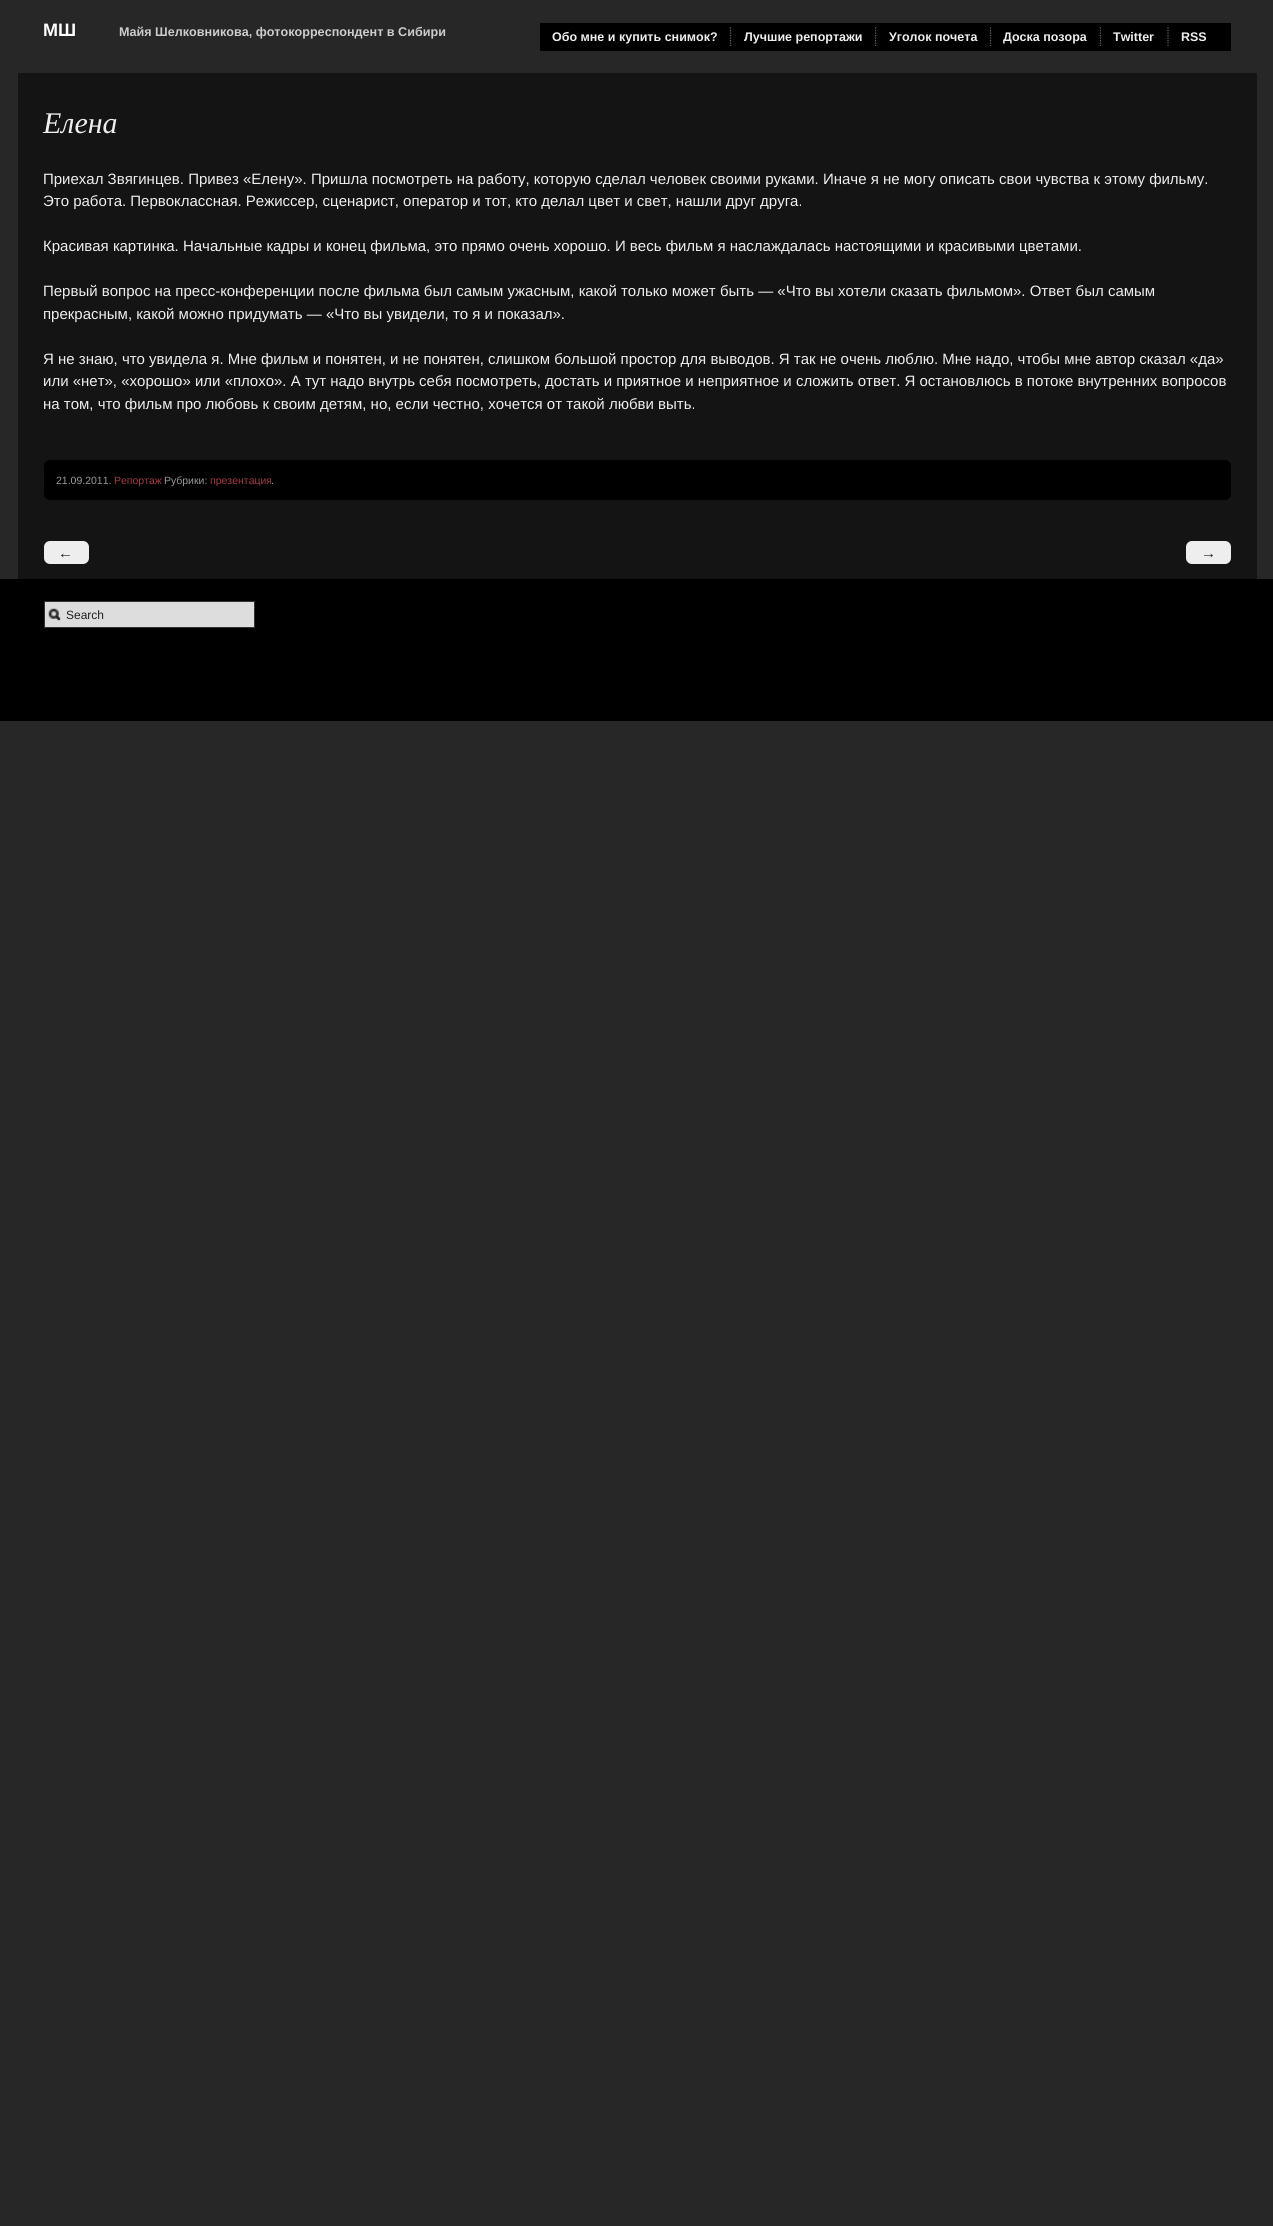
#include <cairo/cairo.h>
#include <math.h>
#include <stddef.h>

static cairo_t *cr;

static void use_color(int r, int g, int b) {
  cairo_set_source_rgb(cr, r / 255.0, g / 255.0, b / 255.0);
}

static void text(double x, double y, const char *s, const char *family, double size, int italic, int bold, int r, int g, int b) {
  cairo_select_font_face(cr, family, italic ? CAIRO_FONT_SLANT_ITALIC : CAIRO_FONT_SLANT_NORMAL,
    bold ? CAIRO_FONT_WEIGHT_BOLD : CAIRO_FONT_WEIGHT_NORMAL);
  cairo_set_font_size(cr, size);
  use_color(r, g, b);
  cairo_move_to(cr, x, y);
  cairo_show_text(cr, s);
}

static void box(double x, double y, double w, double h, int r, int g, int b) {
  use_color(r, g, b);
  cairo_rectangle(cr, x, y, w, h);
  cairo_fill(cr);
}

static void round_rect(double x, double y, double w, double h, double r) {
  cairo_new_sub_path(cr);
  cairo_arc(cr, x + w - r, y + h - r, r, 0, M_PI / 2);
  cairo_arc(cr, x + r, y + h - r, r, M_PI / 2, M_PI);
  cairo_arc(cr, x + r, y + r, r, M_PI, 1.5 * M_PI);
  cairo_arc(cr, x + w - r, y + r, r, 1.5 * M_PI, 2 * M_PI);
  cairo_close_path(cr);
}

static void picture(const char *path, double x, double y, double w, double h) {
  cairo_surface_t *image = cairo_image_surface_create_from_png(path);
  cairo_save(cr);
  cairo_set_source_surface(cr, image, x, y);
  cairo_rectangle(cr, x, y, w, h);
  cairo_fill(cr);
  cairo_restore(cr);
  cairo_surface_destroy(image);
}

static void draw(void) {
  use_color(39, 39, 39);
  cairo_paint(cr);
  box(540, 23, 691, 28, 0, 0, 0);
  cairo_new_path(cr);
  cairo_move_to(cr, 730.5, 27.5);
  cairo_line_to(cr, 730.5, 46);
  use_color(102, 102, 102);
  cairo_set_line_width(cr, 1.2);
  cairo_set_dash(cr, (double[]){1.25, 1.25}, 2, 0);
  cairo_stroke(cr);
  cairo_new_path(cr);
  cairo_move_to(cr, 875.5, 27.5);
  cairo_line_to(cr, 875.5, 46);
  cairo_stroke(cr);
  cairo_new_path(cr);
  cairo_move_to(cr, 990.5, 27.5);
  cairo_line_to(cr, 990.5, 46);
  cairo_stroke(cr);
  cairo_new_path(cr);
  cairo_move_to(cr, 1100.5, 27.5);
  cairo_line_to(cr, 1100.5, 46);
  cairo_stroke(cr);
  cairo_new_path(cr);
  cairo_move_to(cr, 1168, 27.5);
  cairo_line_to(cr, 1168, 46);
  cairo_stroke(cr);
  box(18, 73, 1239, 506, 20, 20, 20);
  use_color(0, 0, 0);
  round_rect(44, 460, 1187, 40, 6);
  cairo_fill(cr);
  use_color(238, 238, 238);
  round_rect(44, 541, 45, 23, 6);
  cairo_fill(cr);
  round_rect(1186, 541, 45, 23, 6);
  cairo_fill(cr);
  box(0, 579, 1273, 142, 0, 0, 0);
  box(45, 602, 209, 25, 221, 221, 221);
  picture("img_01.png", 48, 608, 13, 13);
  cairo_rectangle(cr, 44.5, 601.5, 210, 26);
  use_color(51, 51, 51);
  cairo_set_line_width(cr, 1);
  cairo_set_dash(cr, NULL, 0, 0);
  cairo_stroke(cr);
  text(43, 36, "МШ", "Liberation Sans", 18, 0, 1, 255, 255, 255);
  text(119, 36, "Майя Шелковникова, фотокорреспондент в Сибири", "Liberation Sans", 12.6, 0, 1, 204, 204, 204);
  text(552, 41, "Обо мне и купить снимок?", "Liberation Sans", 12.5, 0, 1, 238, 238, 238);
  text(744, 41, "Лучшие репортажи", "Liberation Sans", 12.5, 0, 1, 238, 238, 238);
  text(889, 41, "Уголок почета", "Liberation Sans", 12.5, 0, 1, 238, 238, 238);
  text(1003, 41, "Доска позора", "Liberation Sans", 12.5, 0, 1, 238, 238, 238);
  text(1113, 41, "Twitter", "Liberation Sans", 12.5, 0, 1, 238, 238, 238);
  text(1181, 41, "RSS", "Liberation Sans", 12.5, 0, 1, 238, 238, 238);
  text(43, 133, "Елена", "Liberation Serif", 30, 1, 0, 238, 238, 238);
  text(43, 184, "Приехал Звягинцев. Привез «Елену». Пришла посмотреть на работу, которую сделал человек своими руками. Иначе я не могу описать свои чувства к этому фильму.", "Liberation Sans", 15, 0, 0, 238, 238, 238);
  text(43, 206, "Это работа. Первоклассная. Режиссер, сценарист, оператор и тот, кто делал цвет и свет, нашли друг друга.", "Liberation Sans", 15, 0, 0, 238, 238, 238);
  text(43, 251, "Красивая картинка. Начальные кадры и конец фильма, это прямо очень хорошо. И весь фильм я наслаждалась настоящими и красивыми цветами.", "Liberation Sans", 15, 0, 0, 238, 238, 238);
  text(43, 296, "Первый вопрос на пресс-конференции после фильма был самым ужасным, какой только может быть — «Что вы хотели сказать фильмом». Ответ был самым", "Liberation Sans", 15, 0, 0, 238, 238, 238);
  text(43, 319, "прекрасным, какой можно придумать — «Что вы увидели, то я и показал».", "Liberation Sans", 15, 0, 0, 238, 238, 238);
  text(43, 364, "Я не знаю, что увидела я. Мне фильм и понятен, и не понятен, слишком большой простор для выводов. Я так не очень люблю. Мне надо, чтобы мне автор сказал «да»", "Liberation Sans", 15, 0, 0, 238, 238, 238);
  text(43, 386, "или «нет», «хорошо» или «плохо». А тут надо внутрь себя посмотреть, достать и приятное и неприятное и сложить ответ. Я остановлюсь в потоке внутренних вопросов", "Liberation Sans", 15, 0, 0, 238, 238, 238);
  text(43, 409, "на том, что фильм про любовь к своим детям, но, если честно, хочется от такой любви выть.", "Liberation Sans", 15, 0, 0, 238, 238, 238);
  text(56, 484, "21.09.2011.", "Liberation Sans", 10.5, 0, 0, 153, 153, 153);
  text(114, 484, "Репортаж", "Liberation Sans", 10.5, 0, 0, 160, 60, 69);
  text(164, 484, "Рубрики:", "Liberation Sans", 10.5, 0, 0, 153, 153, 153);
  text(210, 484, "презентация", "Liberation Sans", 10.5, 0, 0, 160, 60, 69);
  text(271, 484, ".", "Liberation Sans", 10.5, 0, 0, 153, 153, 153);
  text(58, 558, "←", "Liberation Sans", 15, 0, 0, 34, 34, 34);
  text(1201, 558, "→", "Liberation Sans", 15, 0, 0, 34, 34, 34);
  text(66, 619, "Search", "Liberation Sans", 12, 0, 0, 34, 34, 34);
}

int main(void) {
  cairo_surface_t *surface = cairo_image_surface_create(CAIRO_FORMAT_RGB24, 1273, 2226);
  cr = cairo_create(surface);
  cairo_font_options_t *options = cairo_font_options_create();
  cairo_font_options_set_hint_metrics(options, CAIRO_HINT_METRICS_OFF);
  cairo_font_options_set_hint_style(options, CAIRO_HINT_STYLE_NONE);
  cairo_set_font_options(cr, options);
  cairo_set_miter_limit(cr, 4);
  draw();
  cairo_surface_write_to_png(surface, "out.png");
  cairo_font_options_destroy(options);
  cairo_destroy(cr);
  cairo_surface_destroy(surface);
  return 0;
}
